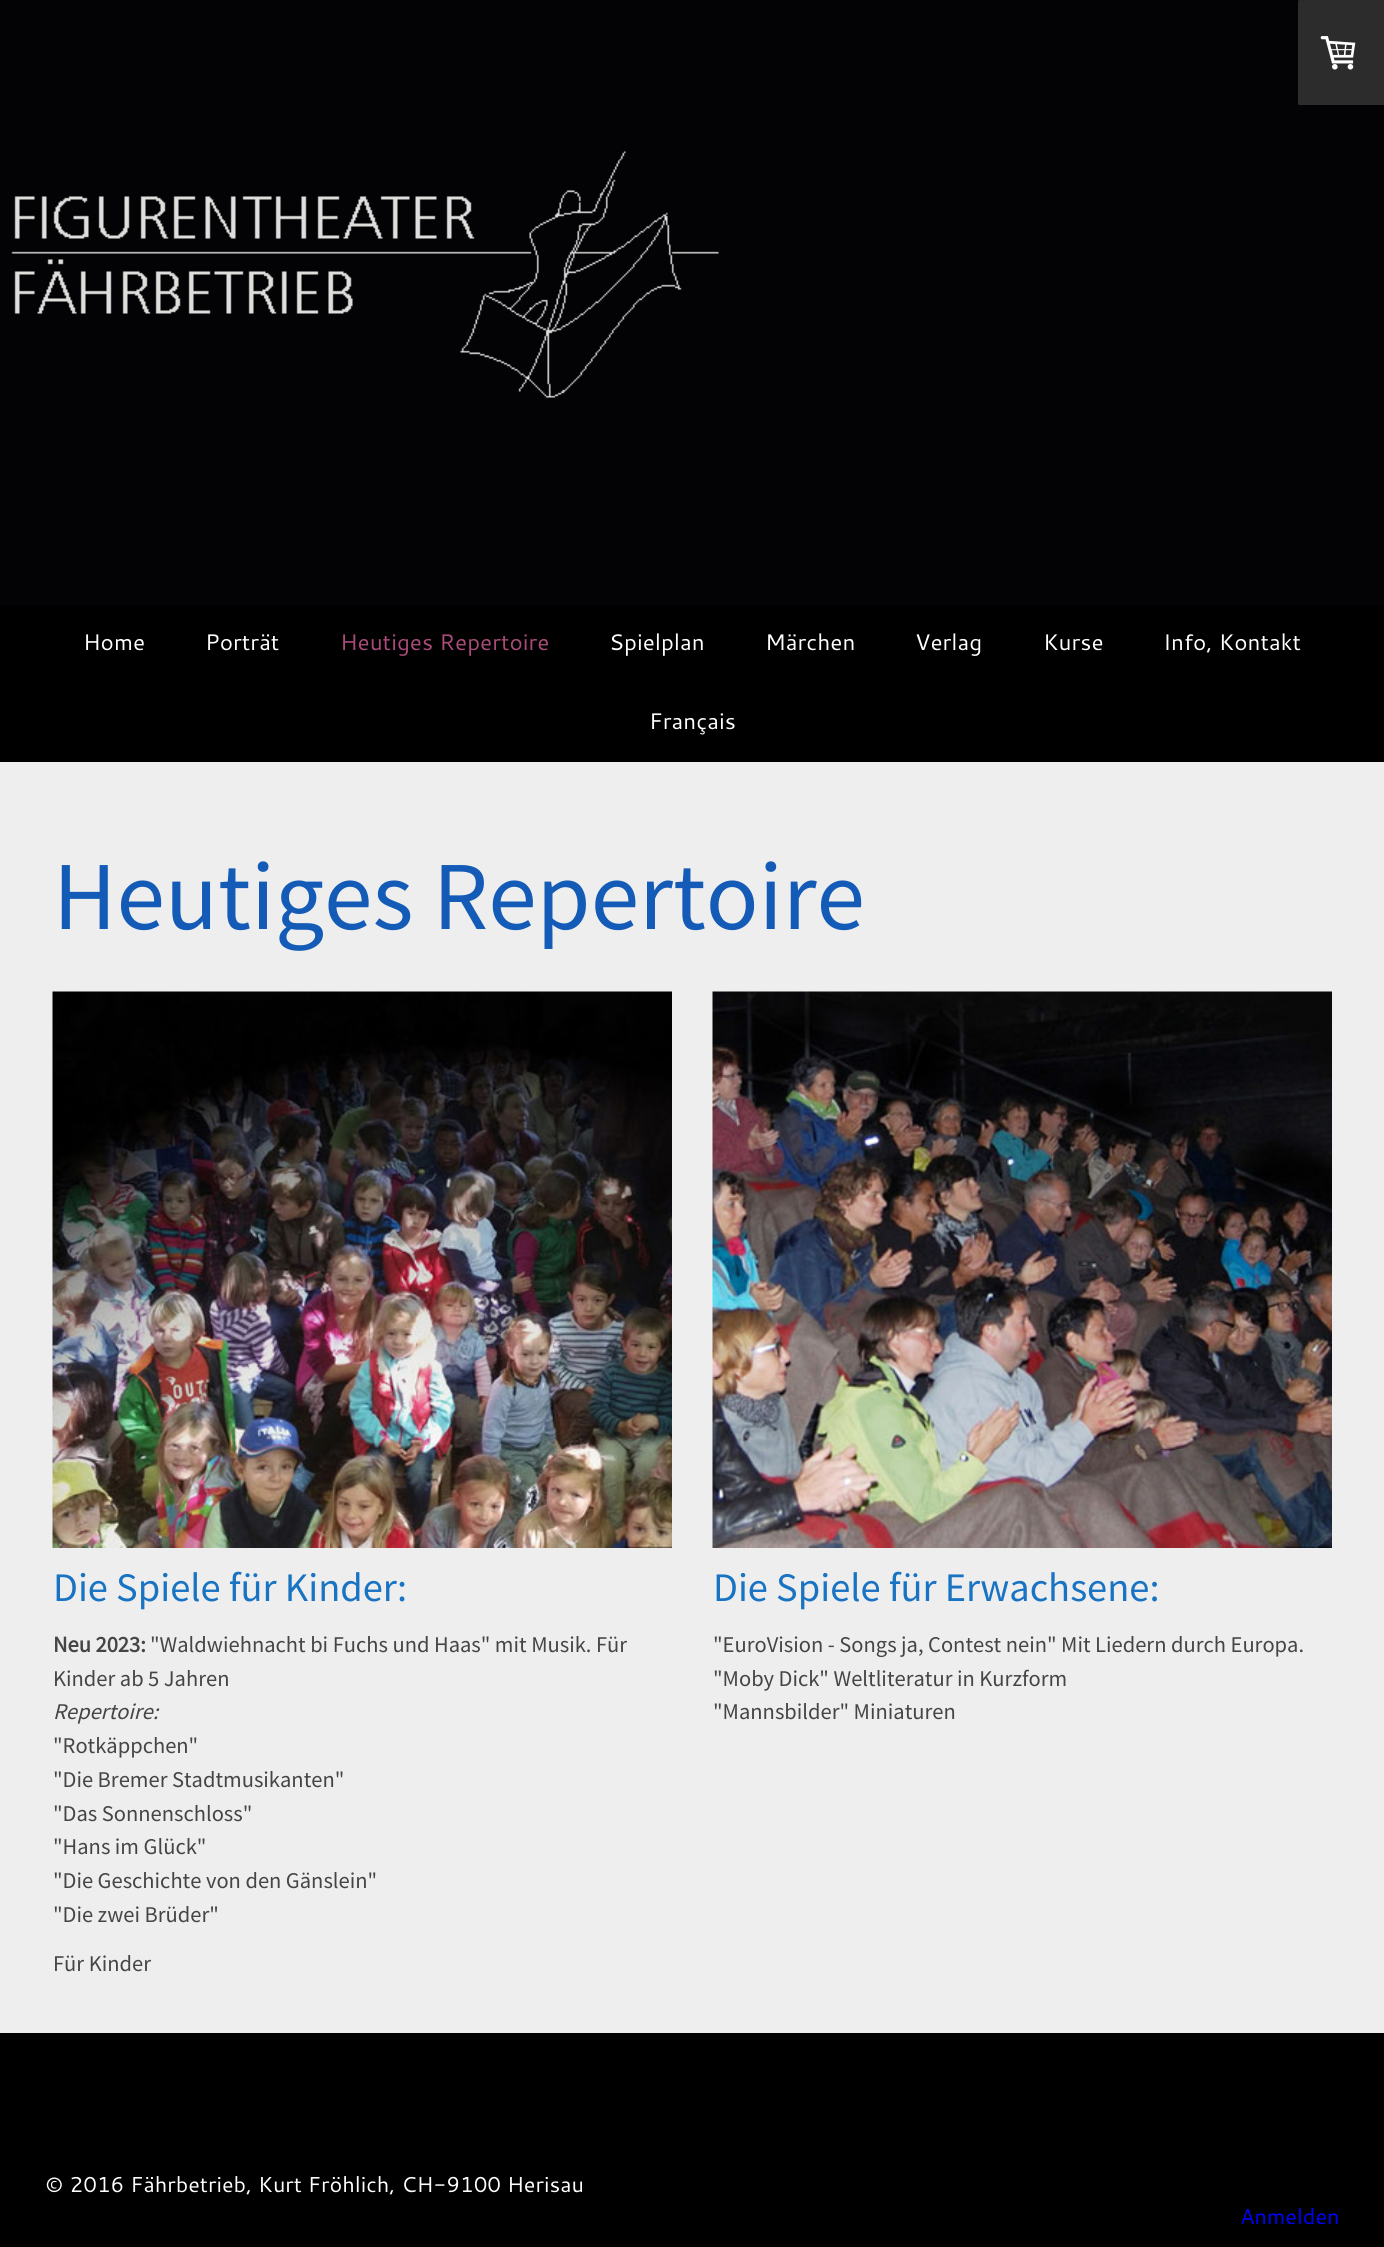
#include <cairo/cairo.h>
#include <math.h>
#include <stddef.h>

static cairo_t *cr;

static void use_color(int r, int g, int b) {
  cairo_set_source_rgb(cr, r / 255.0, g / 255.0, b / 255.0);
}

static void text(double x, double y, const char *s, const char *family, double size, int italic, int bold, int r, int g, int b) {
  cairo_select_font_face(cr, family, italic ? CAIRO_FONT_SLANT_ITALIC : CAIRO_FONT_SLANT_NORMAL,
    bold ? CAIRO_FONT_WEIGHT_BOLD : CAIRO_FONT_WEIGHT_NORMAL);
  cairo_set_font_size(cr, size);
  use_color(r, g, b);
  cairo_move_to(cr, x, y);
  cairo_show_text(cr, s);
}

static void box(double x, double y, double w, double h, int r, int g, int b) {
  use_color(r, g, b);
  cairo_rectangle(cr, x, y, w, h);
  cairo_fill(cr);
}

static void round_rect(double x, double y, double w, double h, double r) {
  cairo_new_sub_path(cr);
  cairo_arc(cr, x + w - r, y + h - r, r, 0, M_PI / 2);
  cairo_arc(cr, x + r, y + h - r, r, M_PI / 2, M_PI);
  cairo_arc(cr, x + r, y + r, r, M_PI, 1.5 * M_PI);
  cairo_arc(cr, x + w - r, y + r, r, 1.5 * M_PI, 2 * M_PI);
  cairo_close_path(cr);
}

static void picture(const char *path, double x, double y, double w, double h) {
  cairo_surface_t *image = cairo_image_surface_create_from_png(path);
  cairo_save(cr);
  cairo_set_source_surface(cr, image, x, y);
  cairo_rectangle(cr, x, y, w, h);
  cairo_fill(cr);
  cairo_restore(cr);
  cairo_surface_destroy(image);
}

static void draw(void) {
  use_color(3, 3, 5);
  cairo_paint(cr);
  picture("img_01.png", 11, 151, 708, 247);
  box(0, 605, 1384, 157, 0, 0, 0);
  use_color(44, 44, 44);
  round_rect(1298, 0, 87, 105, 1.5);
  cairo_fill(cr);
  picture("img_02.png", 1320, 36, 36, 34);
  box(0, 762, 1384, 1271, 238, 238, 238);
  picture("img_03.png", 52, 991, 620, 557);
  picture("img_04.png", 712, 991, 620, 557);
  box(0, 2033, 1384, 214, 0, 0, 0);
  text(83, 650, "Home", "Cantarell", 22.5, 0, 0, 255, 255, 255);
  text(205, 650, "Porträt", "Cantarell", 22.5, 0, 0, 255, 255, 255);
  text(340, 650, "Heutiges Repertoire", "Cantarell", 22.5, 0, 0, 168, 75, 121);
  text(609, 650, "Spielplan", "Cantarell", 22.5, 0, 0, 255, 255, 255);
  text(765, 650, "Märchen", "Cantarell", 22.5, 0, 0, 255, 255, 255);
  text(915, 650, "Verlag", "Cantarell", 22.5, 0, 0, 255, 255, 255);
  text(1043, 650, "Kurse", "Cantarell", 22.5, 0, 0, 255, 255, 255);
  text(1163, 650, "Info, Kontakt", "Cantarell", 22.5, 0, 0, 255, 255, 255);
  text(649, 729, "Français", "Cantarell", 22.5, 0, 0, 255, 255, 255);
  text(53, 929, "Heutiges Repertoire", "Source Sans Pro", 97.5, 0, 0, 19, 91, 182);
  text(53, 1601, "Die Spiele für Kinder:", "Source Sans Pro", 40.5, 0, 0, 25, 115, 195);
  text(53, 1652, "Neu 2023:", "Source Sans Pro", 22.5, 0, 1, 69, 69, 69);
  text(150, 1652, "\"Waldwiehnacht bi Fuchs und Haas\" mit Musik. Für", "Source Sans Pro", 22.5, 0, 0, 69, 69, 69);
  text(53, 1686, "Kinder ab 5 Jahren", "Source Sans Pro", 22.5, 0, 0, 69, 69, 69);
  text(53, 1719, "Repertoire:", "Source Sans Pro", 22.5, 1, 0, 69, 69, 69);
  text(53, 1753, "\"Rotkäppchen\"", "Source Sans Pro", 22.5, 0, 0, 69, 69, 69);
  text(53, 1787, "\"Die Bremer Stadtmusikanten\"", "Source Sans Pro", 22.5, 0, 0, 69, 69, 69);
  text(53, 1821, "\"Das Sonnenschloss\"", "Source Sans Pro", 22.5, 0, 0, 69, 69, 69);
  text(53, 1854, "\"Hans im Glück\"", "Source Sans Pro", 22.5, 0, 0, 69, 69, 69);
  text(53, 1888, "\"Die Geschichte von den Gänslein\"", "Source Sans Pro", 22.5, 0, 0, 69, 69, 69);
  text(53, 1922, "\"Die zwei Brüder\"", "Source Sans Pro", 22.5, 0, 0, 69, 69, 69);
  text(53, 1971, "Für Kinder", "Source Sans Pro", 22.5, 0, 0, 69, 69, 69);
  text(713, 1601, "Die Spiele für Erwachsene:", "Source Sans Pro", 40.5, 0, 0, 25, 115, 195);
  text(713, 1652, "\"EuroVision - Songs ja, Contest nein\" Mit Liedern durch Europa.", "Source Sans Pro", 22.5, 0, 0, 69, 69, 69);
  text(713, 1686, "\"Moby Dick\" Weltliteratur in Kurzform", "Source Sans Pro", 22.5, 0, 0, 69, 69, 69);
  text(713, 1719, "\"Mannsbilder\" Miniaturen", "Source Sans Pro", 22.5, 0, 0, 69, 69, 69);
  text(45, 2192, "© 2016 Fährbetrieb, Kurt Fröhlich, CH-9100 Herisau", "Cantarell", 21.6, 0, 0, 255, 255, 255);
  text(1240, 2224, "Anmelden", "Cantarell", 21.6, 0, 0, 0, 0, 255);
}

int main(void) {
  cairo_surface_t *surface = cairo_image_surface_create(CAIRO_FORMAT_RGB24, 1384, 2247);
  cr = cairo_create(surface);
  cairo_font_options_t *options = cairo_font_options_create();
  cairo_font_options_set_hint_metrics(options, CAIRO_HINT_METRICS_OFF);
  cairo_font_options_set_hint_style(options, CAIRO_HINT_STYLE_NONE);
  cairo_set_font_options(cr, options);
  cairo_set_miter_limit(cr, 4);
  draw();
  cairo_surface_write_to_png(surface, "out.png");
  cairo_font_options_destroy(options);
  cairo_destroy(cr);
  cairo_surface_destroy(surface);
  return 0;
}
